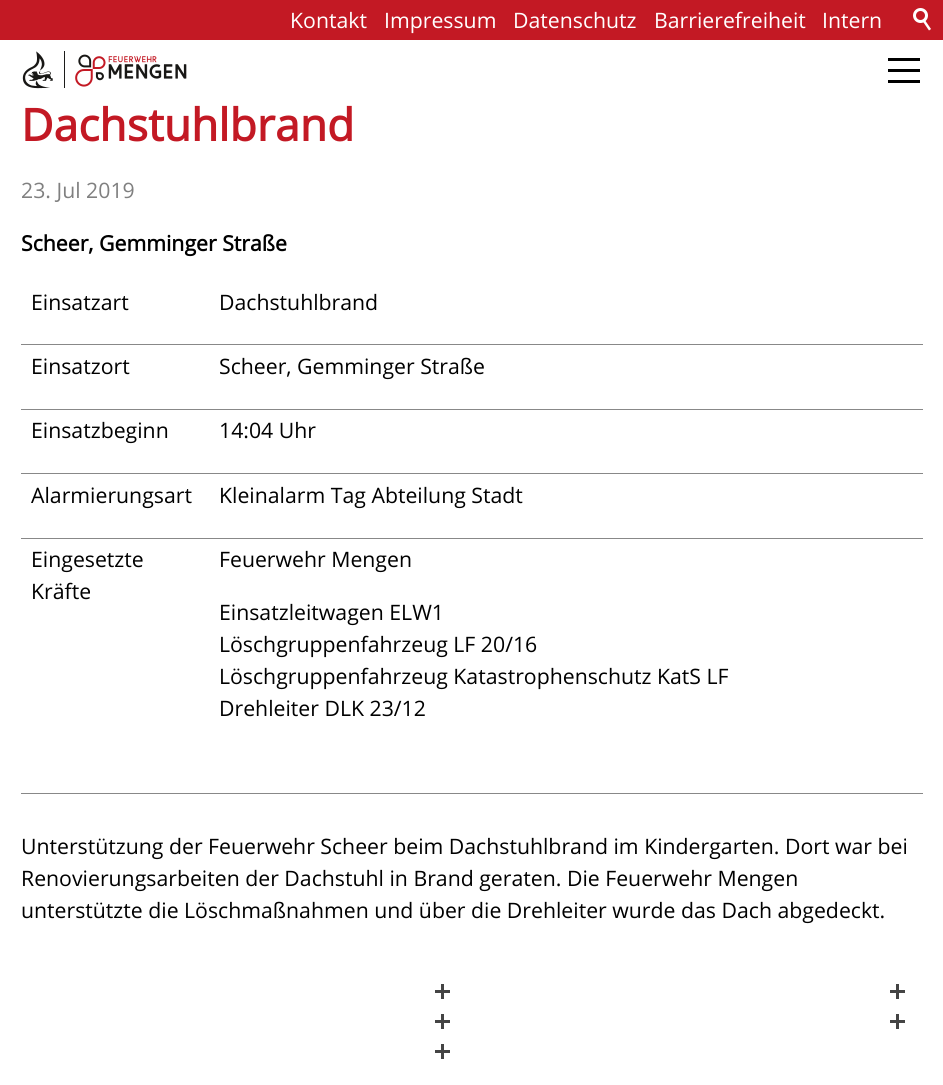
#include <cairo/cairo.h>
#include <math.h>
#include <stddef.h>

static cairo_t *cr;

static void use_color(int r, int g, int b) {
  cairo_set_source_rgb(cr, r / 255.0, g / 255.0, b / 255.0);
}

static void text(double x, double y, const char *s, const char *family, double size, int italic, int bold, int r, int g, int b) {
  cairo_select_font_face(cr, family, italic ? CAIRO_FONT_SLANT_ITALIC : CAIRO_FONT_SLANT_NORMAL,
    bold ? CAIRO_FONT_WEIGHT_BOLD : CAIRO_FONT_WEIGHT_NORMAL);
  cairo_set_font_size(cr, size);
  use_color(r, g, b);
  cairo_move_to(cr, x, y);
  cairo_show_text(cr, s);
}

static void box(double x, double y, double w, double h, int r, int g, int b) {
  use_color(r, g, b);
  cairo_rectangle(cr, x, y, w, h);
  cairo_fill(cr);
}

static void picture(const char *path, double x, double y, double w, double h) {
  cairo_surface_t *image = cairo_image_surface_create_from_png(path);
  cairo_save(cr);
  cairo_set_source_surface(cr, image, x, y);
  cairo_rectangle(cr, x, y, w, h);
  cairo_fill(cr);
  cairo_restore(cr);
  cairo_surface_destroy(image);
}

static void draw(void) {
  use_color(255, 255, 255);
  cairo_paint(cr);
  box(0, 0, 943, 40, 195, 25, 36);
  cairo_arc(cr, 920.5, 15.5, 6, 0, 2 * M_PI);
  use_color(255, 255, 255);
  cairo_set_line_width(cr, 3);
  cairo_stroke(cr);
  cairo_new_path(cr);
  cairo_move_to(cr, 924.5, 19.5);
  cairo_line_to(cr, 931, 29);
  cairo_line_to(cr, 929, 30.5);
  cairo_line_to(cr, 922.5, 21);
  cairo_close_path(cr);
  cairo_fill(cr);
  picture("img_01.png", 22, 51, 165, 38);
  box(888, 58, 32, 3, 0, 0, 0);
  box(888, 69, 32, 3, 0, 0, 0);
  box(888, 80, 32, 3, 0, 0, 0);
  box(21, 344, 902, 1, 136, 136, 136);
  box(21, 409, 902, 1, 136, 136, 136);
  box(21, 473, 902, 1, 136, 136, 136);
  box(21, 538, 902, 1, 136, 136, 136);
  box(21, 793, 902, 1, 136, 136, 136);
  box(435, 990, 15, 3, 68, 68, 68);
  box(441, 984, 3, 15, 68, 68, 68);
  box(890, 990, 15, 3, 68, 68, 68);
  box(896, 984, 3, 15, 68, 68, 68);
  box(435, 1020, 15, 3, 68, 68, 68);
  box(441, 1014, 3, 15, 68, 68, 68);
  box(890, 1020, 15, 3, 68, 68, 68);
  box(896, 1014, 3, 15, 68, 68, 68);
  box(435, 1050, 15, 3, 68, 68, 68);
  box(441, 1044, 3, 15, 68, 68, 68);
  text(290, 28, "Kontakt", "Open Sans", 21.25, 0, 0, 255, 255, 255);
  text(384, 28, "Impressum", "Open Sans", 21.25, 0, 0, 255, 255, 255);
  text(513, 28, "Datenschutz", "Open Sans", 21.25, 0, 0, 255, 255, 255);
  text(654, 28, "Barrierefreiheit", "Open Sans", 21.25, 0, 0, 255, 255, 255);
  text(822, 28, "Intern", "Open Sans", 21.25, 0, 0, 255, 255, 255);
  text(21, 141, "Dachstuhlbrand", "Open Sans", 44.5, 0, 1, 195, 25, 36);
  text(21, 198, "23. Jul 2019", "Open Sans", 21.25, 0, 0, 128, 128, 128);
  text(21, 251, "Scheer, Gemminger Straße", "Open Sans", 21.25, 0, 1, 0, 0, 0);
  text(31, 310, "Einsatzart", "Open Sans", 21.25, 0, 0, 0, 0, 0);
  text(219, 310, "Dachstuhlbrand", "Open Sans", 21.25, 0, 0, 0, 0, 0);
  text(31, 374, "Einsatzort", "Open Sans", 21.25, 0, 0, 0, 0, 0);
  text(219, 374, "Scheer, Gemminger Straße", "Open Sans", 21.25, 0, 0, 0, 0, 0);
  text(31, 438, "Einsatzbeginn", "Open Sans", 21.25, 0, 0, 0, 0, 0);
  text(219, 438, "14:04 Uhr", "Open Sans", 21.25, 0, 0, 0, 0, 0);
  text(31, 503, "Alarmierungsart", "Open Sans", 21.25, 0, 0, 0, 0, 0);
  text(219, 503, "Kleinalarm Tag Abteilung Stadt", "Open Sans", 21.25, 0, 0, 0, 0, 0);
  text(31, 567, "Eingesetzte", "Open Sans", 21.25, 0, 0, 0, 0, 0);
  text(31, 599, "Kräfte", "Open Sans", 21.25, 0, 0, 0, 0, 0);
  text(219, 567, "Feuerwehr Mengen", "Open Sans", 21.25, 0, 0, 0, 0, 0);
  text(219, 620, "Einsatzleitwagen ELW1", "Open Sans", 21.25, 0, 0, 0, 0, 0);
  text(219, 652, "Löschgruppenfahrzeug LF 20/16", "Open Sans", 21.25, 0, 0, 0, 0, 0);
  text(219, 684, "Löschgruppenfahrzeug Katastrophenschutz KatS LF", "Open Sans", 21.25, 0, 0, 0, 0, 0);
  text(219, 716, "Drehleiter DLK 23/12", "Open Sans", 21.25, 0, 0, 0, 0, 0);
  text(21, 854, "Unterstützung der Feuerwehr Scheer beim Dachstuhlbrand im Kindergarten. Dort war bei", "Open Sans", 21.25, 0, 0, 0, 0, 0);
  text(21, 886, "Renovierungsarbeiten der Dachstuhl in Brand geraten. Die Feuerwehr Mengen", "Open Sans", 21.25, 0, 0, 0, 0, 0);
  text(21, 918, "unterstützte die Löschmaßnahmen und über die Drehleiter wurde das Dach abgedeckt.", "Open Sans", 21.25, 0, 0, 0, 0, 0);
}

int main(void) {
  cairo_surface_t *surface = cairo_image_surface_create(CAIRO_FORMAT_RGB24, 943, 1085);
  cr = cairo_create(surface);
  cairo_font_options_t *options = cairo_font_options_create();
  cairo_font_options_set_hint_metrics(options, CAIRO_HINT_METRICS_OFF);
  cairo_font_options_set_hint_style(options, CAIRO_HINT_STYLE_NONE);
  cairo_set_font_options(cr, options);
  cairo_set_miter_limit(cr, 4);
  draw();
  cairo_surface_write_to_png(surface, "out.png");
  cairo_font_options_destroy(options);
  cairo_destroy(cr);
  cairo_surface_destroy(surface);
  return 0;
}
